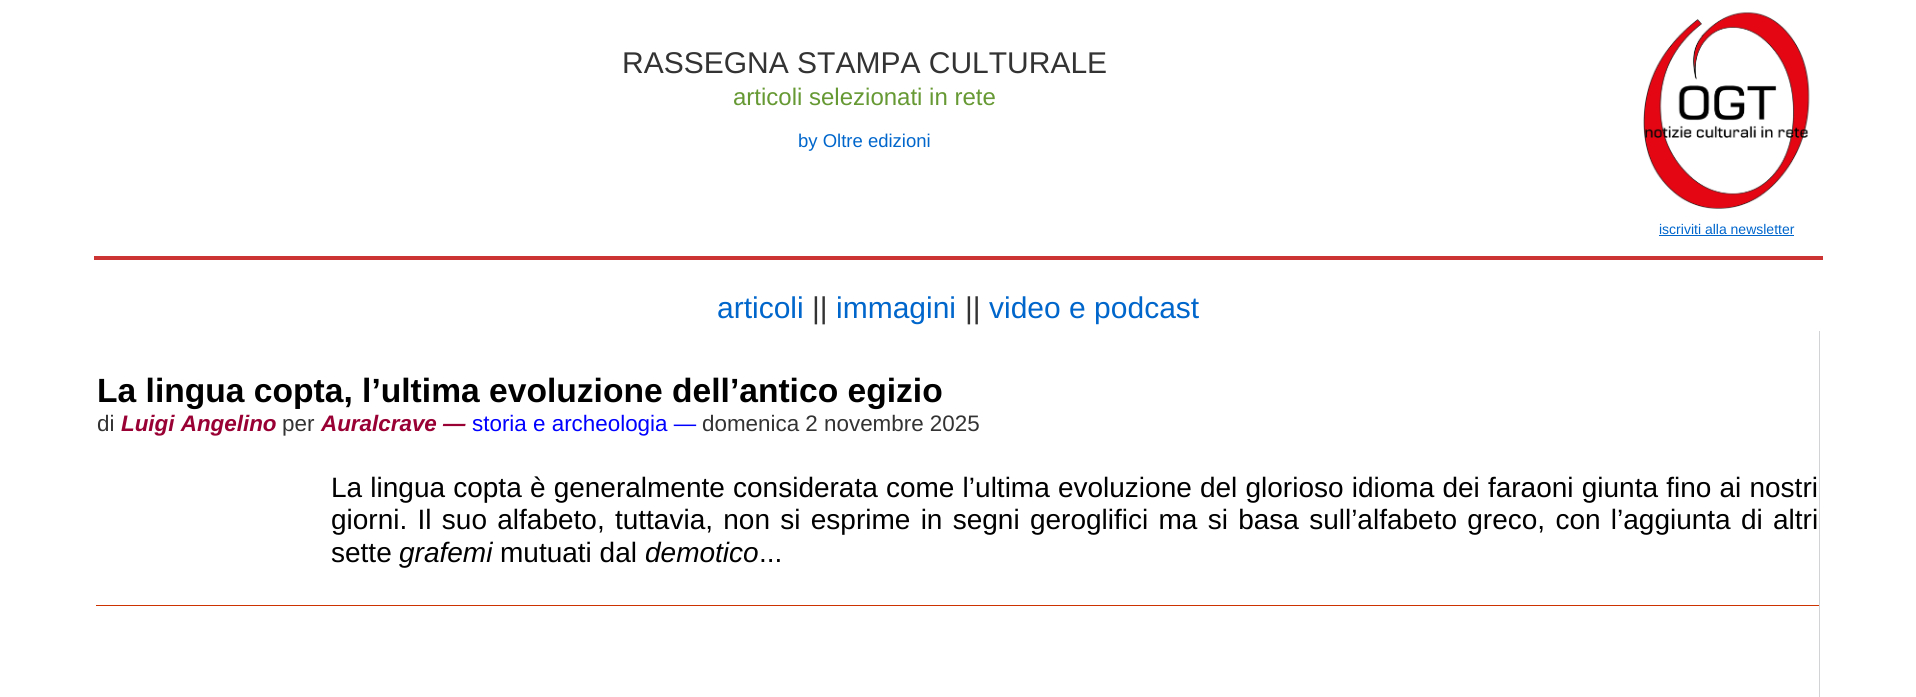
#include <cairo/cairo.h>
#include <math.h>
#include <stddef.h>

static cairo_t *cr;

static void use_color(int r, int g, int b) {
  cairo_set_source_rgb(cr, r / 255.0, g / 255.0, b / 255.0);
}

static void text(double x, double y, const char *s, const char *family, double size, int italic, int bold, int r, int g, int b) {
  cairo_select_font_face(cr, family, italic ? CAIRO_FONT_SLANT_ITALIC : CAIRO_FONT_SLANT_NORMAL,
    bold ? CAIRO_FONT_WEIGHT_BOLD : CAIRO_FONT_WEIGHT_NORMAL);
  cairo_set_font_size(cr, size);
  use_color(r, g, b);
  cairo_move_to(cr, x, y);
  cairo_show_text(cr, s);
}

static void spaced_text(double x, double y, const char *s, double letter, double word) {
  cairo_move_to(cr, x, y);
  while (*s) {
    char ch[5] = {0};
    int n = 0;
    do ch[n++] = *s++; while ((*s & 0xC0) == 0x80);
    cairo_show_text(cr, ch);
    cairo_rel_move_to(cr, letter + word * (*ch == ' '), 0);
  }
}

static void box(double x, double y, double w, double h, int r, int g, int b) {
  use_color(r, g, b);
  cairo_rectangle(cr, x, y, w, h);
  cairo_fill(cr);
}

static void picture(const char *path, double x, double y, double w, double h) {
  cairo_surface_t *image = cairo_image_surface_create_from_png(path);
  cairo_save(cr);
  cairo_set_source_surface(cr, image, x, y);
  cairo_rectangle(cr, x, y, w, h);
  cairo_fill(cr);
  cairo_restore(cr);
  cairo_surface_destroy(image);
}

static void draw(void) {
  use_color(255, 255, 255);
  cairo_paint(cr);
  box(94, 256, 1729, 4, 204, 51, 51);
  picture("img_01.png", 1643, 12, 167, 197);
  box(1659, 235, 135, 1, 0, 102, 204);
  box(1819, 331, 1, 366, 209, 211, 212);
  box(96, 605, 1723, 1, 204, 51, 0);
  text(622, 73, "RASSEGNA STAMPA CULTURALE", "Liberation Sans", 30, 0, 0, 51, 51, 51);
  text(733, 105, "articoli selezionati in rete", "Liberation Sans", 24, 0, 0, 102, 153, 51);
  text(798, 147, "by Oltre edizioni", "Liberation Sans", 18.5, 0, 0, 0, 102, 204);
  text(1659, 234, "iscriviti alla newsletter", "Liberation Sans", 14, 0, 0, 0, 102, 204);
  text(717, 318, "articoli", "Liberation Sans", 30, 0, 0, 0, 102, 204);
  text(812, 318, "||", "Liberation Sans", 30, 0, 0, 51, 51, 51);
  text(836, 318, "immagini", "Liberation Sans", 30, 0, 0, 0, 102, 204);
  text(965, 318, "||", "Liberation Sans", 30, 0, 0, 51, 51, 51);
  text(989, 318, "video e podcast", "Liberation Sans", 30, 0, 0, 0, 102, 204);
  text(97, 402, "La lingua copta, l’ultima evoluzione dell’antico egizio", "Liberation Sans", 33.6, 0, 1, 0, 0, 0);
  text(97, 431, "di", "Liberation Sans", 22.4, 0, 0, 51, 51, 51);
  text(121, 431, "Luigi Angelino", "Liberation Sans", 22.4, 1, 1, 153, 0, 51);
  text(282, 431, "per", "Liberation Sans", 22.4, 0, 0, 51, 51, 51);
  text(321, 431, "Auralcrave —", "Liberation Sans", 22.4, 1, 1, 153, 0, 51);
  text(472, 431, "storia e archeologia —", "Liberation Sans", 22.4, 0, 0, 0, 0, 255);
  text(702, 431, "domenica 2 novembre 2025", "Liberation Sans", 22.4, 0, 0, 51, 51, 51);
  cairo_set_font_size(cr, 28);
  use_color(0, 0, 0);
  spaced_text(331, 497, "La lingua copta è generalmente considerata come l’ultima evoluzione del glorioso idioma dei faraoni giunta fino ai nostri", 0, 0.4);
  spaced_text(331, 529, "giorni. Il suo alfabeto, tuttavia, non si esprime in segni geroglifici ma si basa sull’alfabeto greco, con l’aggiunta di altri", 0, 2.5);
  text(331, 562, "sette", "Liberation Sans", 28, 0, 0, 0, 0, 0);
  text(399, 562, "grafemi", "Liberation Sans", 28, 1, 0, 0, 0, 0);
  text(500, 562, "mutuati dal", "Liberation Sans", 28, 0, 0, 0, 0, 0);
  text(645, 562, "demotico", "Liberation Sans", 28, 1, 0, 0, 0, 0);
  text(759, 562, "...", "Liberation Sans", 28, 0, 0, 0, 0, 0);
}

int main(void) {
  cairo_surface_t *surface = cairo_image_surface_create(CAIRO_FORMAT_RGB24, 1916, 697);
  cr = cairo_create(surface);
  cairo_font_options_t *options = cairo_font_options_create();
  cairo_font_options_set_hint_metrics(options, CAIRO_HINT_METRICS_OFF);
  cairo_font_options_set_hint_style(options, CAIRO_HINT_STYLE_NONE);
  cairo_set_font_options(cr, options);
  cairo_set_miter_limit(cr, 4);
  draw();
  cairo_surface_write_to_png(surface, "out.png");
  cairo_font_options_destroy(options);
  cairo_destroy(cr);
  cairo_surface_destroy(surface);
  return 0;
}
